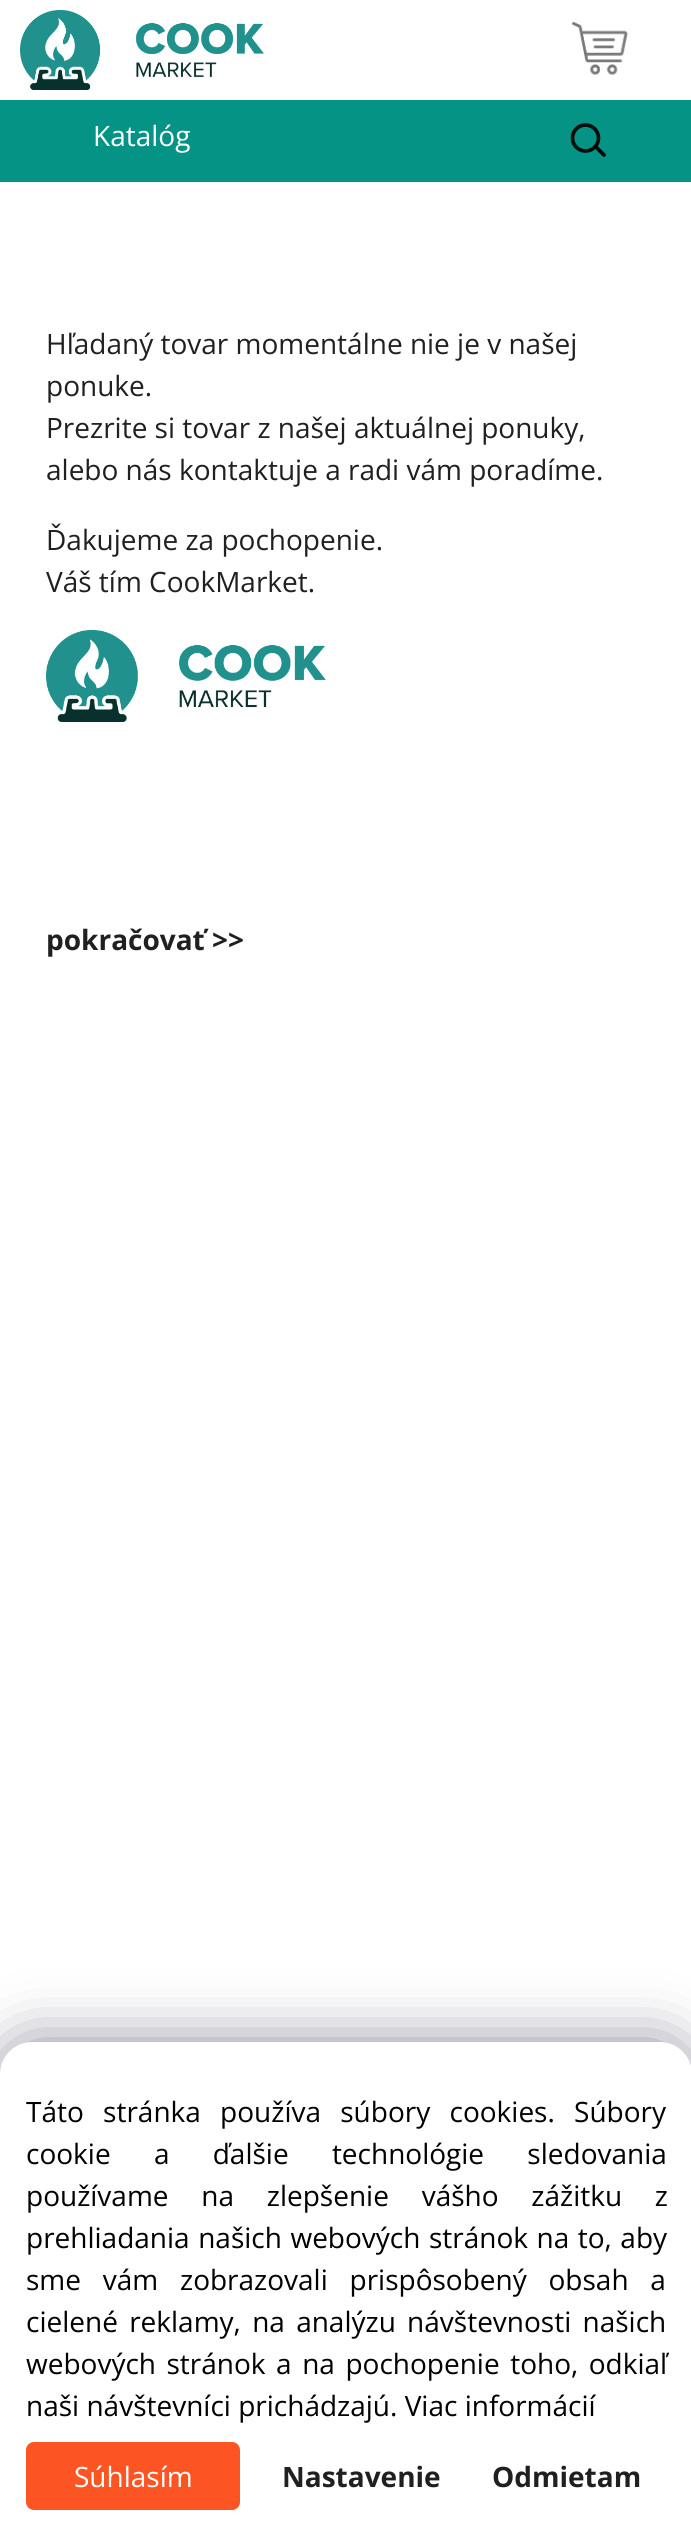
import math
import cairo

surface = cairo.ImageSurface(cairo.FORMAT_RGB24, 691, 2541)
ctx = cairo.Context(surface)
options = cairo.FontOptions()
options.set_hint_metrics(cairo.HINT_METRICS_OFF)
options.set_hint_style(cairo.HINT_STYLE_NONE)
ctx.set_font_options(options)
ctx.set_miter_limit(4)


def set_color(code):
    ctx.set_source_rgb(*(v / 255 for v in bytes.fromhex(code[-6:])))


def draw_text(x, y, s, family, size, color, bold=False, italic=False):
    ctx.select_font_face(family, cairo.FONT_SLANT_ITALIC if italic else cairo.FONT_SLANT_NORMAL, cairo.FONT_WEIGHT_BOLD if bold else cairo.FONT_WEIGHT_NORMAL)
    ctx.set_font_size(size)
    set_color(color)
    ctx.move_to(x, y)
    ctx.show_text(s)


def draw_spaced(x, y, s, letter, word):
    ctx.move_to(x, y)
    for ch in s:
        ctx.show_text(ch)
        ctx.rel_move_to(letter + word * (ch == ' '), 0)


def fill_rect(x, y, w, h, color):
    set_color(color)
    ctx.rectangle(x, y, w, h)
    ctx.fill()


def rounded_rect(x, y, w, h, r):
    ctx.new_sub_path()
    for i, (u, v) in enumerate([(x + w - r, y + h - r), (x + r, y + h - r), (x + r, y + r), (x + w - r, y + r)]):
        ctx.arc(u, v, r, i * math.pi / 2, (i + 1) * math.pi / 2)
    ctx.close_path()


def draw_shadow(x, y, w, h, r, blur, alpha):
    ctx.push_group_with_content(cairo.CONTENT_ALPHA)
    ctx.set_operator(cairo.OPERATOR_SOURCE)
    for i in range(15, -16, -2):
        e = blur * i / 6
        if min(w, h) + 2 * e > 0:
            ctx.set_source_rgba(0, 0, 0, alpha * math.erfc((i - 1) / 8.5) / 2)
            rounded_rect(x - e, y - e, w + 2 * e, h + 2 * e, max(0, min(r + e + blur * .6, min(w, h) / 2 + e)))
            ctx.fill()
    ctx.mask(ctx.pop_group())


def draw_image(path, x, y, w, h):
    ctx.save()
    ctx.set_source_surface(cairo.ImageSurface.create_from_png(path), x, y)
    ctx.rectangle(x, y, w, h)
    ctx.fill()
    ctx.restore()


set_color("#ffffff")
ctx.paint()
draw_image("assets/img1.png", 20, 10, 244, 80)
fill_rect(0, 100, 691, 82, "#059386")
draw_image("assets/img2.png", 571, 21, 57, 54)
draw_text(93, 146, "Katalóg", "Open Sans", 28, "#ffffff")
ctx.new_path()
ctx.arc(585.5, 138, 13, 0, 2 * math.pi)
set_color("#000e0d")
ctx.set_line_width(3.7)
ctx.stroke()
ctx.new_path()
ctx.move_to(595.5, 146.5)
ctx.line_to(604, 155)
set_color("#000000")
ctx.set_line_cap(cairo.LINE_CAP_ROUND)
ctx.stroke()
draw_text(46, 354, "Hľadaný tovar momentálne nie je v našej", "Open Sans", 28, "#202020")
draw_text(46, 396, "ponuke.", "Open Sans", 28, "#202020")
draw_text(46, 438, "Prezrite si tovar z našej aktuálnej ponuky,", "Open Sans", 28, "#202020")
draw_text(46, 480, "alebo nás kontaktuje a radi vám poradíme.", "Open Sans", 28, "#202020")
draw_text(46, 550, "Ďakujeme za pochopenie.", "Open Sans", 28, "#202020")
draw_text(46, 592, "Váš tím CookMarket.", "Open Sans", 28, "#202020")
draw_image("assets/img3.png", 46, 630, 280, 92)
draw_text(46, 950, "pokračovať >>", "Open Sans", 28, "#202020", bold=True)
set_color("#1b1939")
draw_shadow(0, 2042, 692, 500, 32, 30, 0.5)
set_color("#ffffff")
ctx.new_path()
ctx.move_to(32, 2042)
ctx.line_to(660, 2042)
ctx.curve_to(677.5, 2042, 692, 2056.5, 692, 2074)
ctx.line_to(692, 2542)
ctx.line_to(0, 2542)
ctx.line_to(0, 2074)
ctx.curve_to(0, 2056.5, 14.5, 2042, 32, 2042)
ctx.close_path()
ctx.fill()
ctx.select_font_face("Open Sans")
set_color("#000000")
draw_spaced(26, 2122, "Táto stránka používa súbory cookies. Súbory", 0, 12)
draw_spaced(26, 2164, "cookie a ďalšie technológie sledovania", 0, 36)
draw_spaced(26, 2206, "používame na zlepšenie vášho zážitku z", 0, 25.5)
draw_spaced(26, 2248, "prehliadania našich webových stránok na to, aby", 0, 1.25)
draw_spaced(26, 2290, "sme vám zobrazovali prispôsobený obsah a", 0, 14.5)
draw_spaced(26, 2332, "cielené reklamy, na analýzu návštevnosti našich", 0, 4)
draw_spaced(26, 2374, "webových stránok a na pochopenie toho, odkiaľ", 0, 3.25)
draw_text(26, 2416, "naši návštevníci prichádzajú. Viac informácií", "Open Sans", 28, "#000000")
set_color("#fc5423")
rounded_rect(26, 2442, 214, 68, 8)
ctx.fill()
draw_text(74, 2487, "Súhlasím", "Open Sans", 28, "#ffffff")
draw_text(282, 2487, "Nastavenie", "Open Sans", 28, "#202020", bold=True)
draw_text(492, 2487, "Odmietam", "Open Sans", 28, "#202020", bold=True)
surface.write_to_png("output.png")
